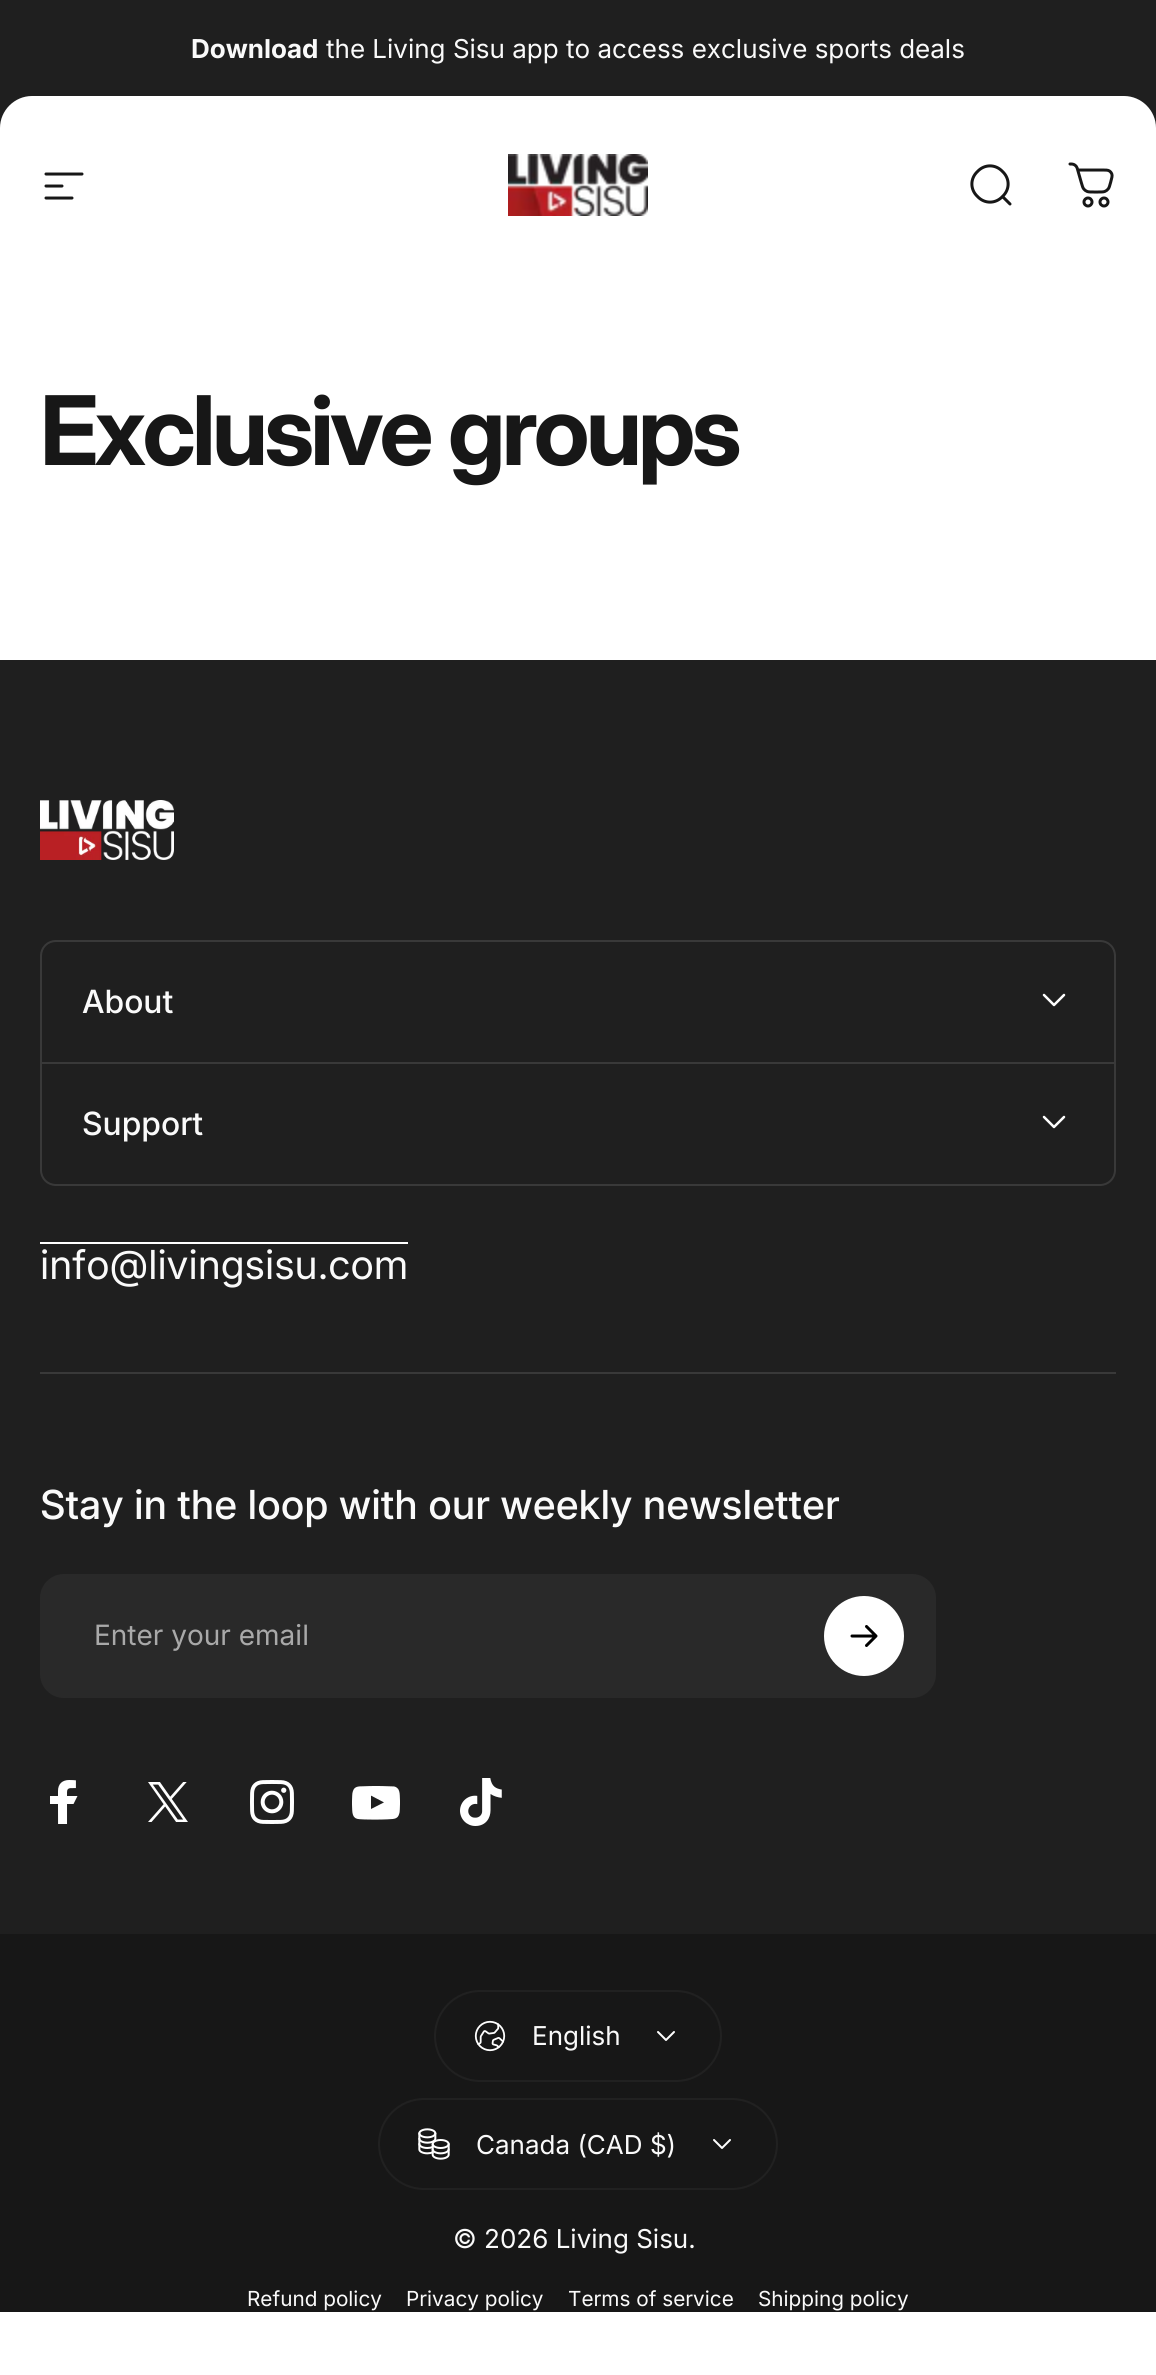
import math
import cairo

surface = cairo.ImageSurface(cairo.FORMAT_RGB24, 1156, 2375)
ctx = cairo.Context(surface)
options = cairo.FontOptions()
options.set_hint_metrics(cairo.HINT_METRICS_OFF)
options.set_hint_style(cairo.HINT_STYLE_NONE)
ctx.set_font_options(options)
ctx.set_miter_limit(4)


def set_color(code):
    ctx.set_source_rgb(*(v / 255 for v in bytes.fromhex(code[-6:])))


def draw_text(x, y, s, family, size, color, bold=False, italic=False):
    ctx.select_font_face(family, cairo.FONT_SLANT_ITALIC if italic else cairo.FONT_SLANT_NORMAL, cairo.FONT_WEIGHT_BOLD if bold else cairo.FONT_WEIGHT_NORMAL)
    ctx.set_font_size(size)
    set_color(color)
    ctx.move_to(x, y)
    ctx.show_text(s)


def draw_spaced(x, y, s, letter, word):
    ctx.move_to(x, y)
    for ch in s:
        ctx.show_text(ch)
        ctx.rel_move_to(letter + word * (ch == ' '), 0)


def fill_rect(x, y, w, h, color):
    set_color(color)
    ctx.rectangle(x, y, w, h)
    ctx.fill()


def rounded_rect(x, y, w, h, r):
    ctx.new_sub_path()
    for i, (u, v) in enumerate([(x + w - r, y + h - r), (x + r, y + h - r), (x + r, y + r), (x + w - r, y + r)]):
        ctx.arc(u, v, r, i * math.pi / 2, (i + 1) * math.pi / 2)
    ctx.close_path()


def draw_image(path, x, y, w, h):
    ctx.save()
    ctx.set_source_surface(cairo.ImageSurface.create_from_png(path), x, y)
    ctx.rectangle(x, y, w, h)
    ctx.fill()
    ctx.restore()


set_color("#ffffff")
ctx.paint()
fill_rect(0, 0, 1156, 32, "#1f1f1f")
ctx.new_path()
ctx.move_to(32, 0)
ctx.line_to(1124, 0)
ctx.curve_to(1141.5, 0, 1156, 14.5, 1156, 32)
ctx.line_to(1156, 128)
ctx.line_to(0, 128)
ctx.line_to(0, 32)
ctx.curve_to(0, 14.5, 14.5, 0, 32, 0)
ctx.close_path()
ctx.fill()
draw_text(191, 58, "Download", "Inter", 26, "#fafafa", bold=True)
draw_text(326, 58, "the Living Sisu app to access exclusive sports deals", "Inter", 26, "#fafafa")
set_color("#ffffff")
ctx.new_path()
ctx.move_to(32, 96)
ctx.line_to(1124, 96)
ctx.curve_to(1141.5, 96, 1156, 110.5, 1156, 128)
ctx.line_to(1156, 278)
ctx.line_to(0, 278)
ctx.line_to(0, 128)
ctx.curve_to(0, 110.5, 14.5, 96, 32, 96)
ctx.close_path()
ctx.fill()
ctx.new_path()
ctx.move_to(46, 174)
ctx.line_to(82, 174)
ctx.move_to(46, 186)
ctx.line_to(62, 186)
ctx.move_to(46, 198)
ctx.line_to(72, 198)
set_color("#171717")
ctx.set_line_width(3)
ctx.set_line_cap(cairo.LINE_CAP_ROUND)
ctx.stroke()
draw_image("assets/img1.png", 508, 154, 140, 62)
ctx.new_path()
ctx.move_to(1010, 204)
ctx.line_to(1002.5, 196.5)
ctx.move_to(1002.5, 196.5)
ctx.curve_to(1010, 189.5, 1010, 178.5, 1002.5, 171.5)
ctx.curve_to(995.5, 164, 984.5, 164, 977.5, 171.5)
ctx.curve_to(970, 178.5, 970, 189.5, 977.5, 196.5)
ctx.curve_to(984.5, 204, 995.5, 204, 1002.5, 196.5)
ctx.close_path()
ctx.stroke()
draw_image("assets/img2.png", 1068, 162, 46, 46)
ctx.select_font_face("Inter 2", cairo.FONT_SLANT_NORMAL, cairo.FONT_WEIGHT_BOLD)
ctx.set_font_size(96)
draw_spaced(40, 465, "Exclusive", -3.75, 0)
draw_spaced(448, 465, "groups", -3.75, 0)
fill_rect(0, 660, 1156, 1274, "#1f1f1f")
draw_image("assets/img3.png", 40, 800, 134, 60)
set_color("#393939")
ctx.set_fill_rule(cairo.FILL_RULE_EVEN_ODD)
ctx.new_path()
ctx.move_to(56, 940)
ctx.line_to(1100, 940)
ctx.curve_to(1109, 940, 1116, 947, 1116, 956)
ctx.line_to(1116, 1062)
ctx.line_to(40, 1062)
ctx.line_to(40, 956)
ctx.curve_to(40, 947, 47, 940, 56, 940)
ctx.close_path()
ctx.move_to(56, 942)
ctx.line_to(1100, 942)
ctx.curve_to(1108, 942, 1114, 948, 1114, 956)
ctx.line_to(1114, 1062)
ctx.line_to(42, 1062)
ctx.line_to(42, 956)
ctx.curve_to(42, 948, 48, 942, 56, 942)
ctx.close_path()
ctx.fill()
draw_text(82, 1013, "About", "Inter Medium", 32, "#fafafa")
ctx.new_path()
ctx.move_to(1044, 995)
ctx.line_to(1054, 1005)
ctx.line_to(1064, 995)
set_color("#ffffff")
ctx.set_line_width(2.5)
ctx.set_line_join(cairo.LINE_JOIN_ROUND)
ctx.stroke()
ctx.new_path()
ctx.move_to(41, 1063)
ctx.line_to(1115, 1063)
ctx.line_to(1115, 1170)
ctx.curve_to(1115, 1178.5, 1108.5, 1185, 1100, 1185)
ctx.line_to(56, 1185)
ctx.curve_to(47.5, 1185, 41, 1178.5, 41, 1170)
ctx.close_path()
set_color("#393939")
ctx.set_line_width(2)
ctx.set_line_cap(cairo.LINE_CAP_BUTT)
ctx.set_line_join(cairo.LINE_JOIN_MITER)
ctx.stroke()
draw_text(82, 1135, "Support", "Inter Medium", 32, "#fafafa")
ctx.new_path()
ctx.move_to(1044, 1117)
ctx.line_to(1054, 1127)
ctx.line_to(1064, 1117)
set_color("#ffffff")
ctx.set_line_width(2.5)
ctx.set_line_cap(cairo.LINE_CAP_ROUND)
ctx.set_line_join(cairo.LINE_JOIN_ROUND)
ctx.stroke()
fill_rect(40, 1242, 368, 2, "#ffffff")
draw_text(40, 1279, "info@livingsisu.com", "Inter 2", 40, "#fafafa")
fill_rect(40, 1372, 1076, 2, "#393939")
draw_text(40, 1519, "Stay in the loop with our weekly newsletter", "Inter 2 Medium", 40, "#fafafa")
set_color("#292929")
rounded_rect(40, 1574, 896, 124, 24)
ctx.fill()
draw_text(94, 1645, "Enter your email", "Inter", 28, "#a9a9a9")
set_color("#ffffff")
ctx.new_path()
ctx.arc(864, 1636, 38, 0, 2 * math.pi)
ctx.fill_preserve()
ctx.set_line_width(4)
ctx.set_line_cap(cairo.LINE_CAP_BUTT)
ctx.set_line_join(cairo.LINE_JOIN_MITER)
ctx.stroke()
ctx.new_path()
ctx.move_to(852, 1636)
ctx.line_to(876, 1636)
ctx.move_to(876, 1636)
ctx.line_to(866.5, 1626.5)
ctx.move_to(876, 1636)
ctx.line_to(866.5, 1645.5)
set_color("#000000")
ctx.set_line_width(3)
ctx.set_line_cap(cairo.LINE_CAP_ROUND)
ctx.set_line_join(cairo.LINE_JOIN_ROUND)
ctx.stroke()
draw_image("assets/img4.png", 50, 1780, 28, 44)
draw_image("assets/img5.png", 148, 1782, 40, 40)
draw_image("assets/img6.png", 250, 1780, 44, 44)
draw_image("assets/img7.png", 352, 1786, 48, 34)
draw_image("assets/img8.png", 460, 1778, 42, 48)
fill_rect(0, 1934, 1156, 378, "#171717")
rounded_rect(435, 1991, 286, 90, 45)
set_color("#212121")
ctx.set_line_width(2)
ctx.set_line_cap(cairo.LINE_CAP_BUTT)
ctx.set_line_join(cairo.LINE_JOIN_MITER)
ctx.stroke()
draw_image("assets/img9.png", 474, 2020, 32, 32)
draw_text(532, 2045, "English", "Inter", 26, "#fafafa")
ctx.new_path()
ctx.move_to(658, 2032)
ctx.line_to(666, 2040)
ctx.line_to(674, 2032)
set_color("#ffffff")
ctx.set_line_cap(cairo.LINE_CAP_ROUND)
ctx.set_line_join(cairo.LINE_JOIN_ROUND)
ctx.stroke()
rounded_rect(379, 2099, 398, 90, 45)
set_color("#212121")
ctx.set_line_cap(cairo.LINE_CAP_BUTT)
ctx.set_line_join(cairo.LINE_JOIN_MITER)
ctx.stroke()
draw_image("assets/img10.png", 418, 2128, 32, 32)
draw_text(476, 2154, "Canada (CAD $)", "Inter", 26, "#fafafa")
ctx.new_path()
ctx.move_to(714, 2140)
ctx.line_to(722, 2148)
ctx.line_to(730, 2140)
set_color("#ffffff")
ctx.set_line_cap(cairo.LINE_CAP_ROUND)
ctx.set_line_join(cairo.LINE_JOIN_ROUND)
ctx.stroke()
draw_text(453, 2248, "© 2026 Living Sisu.", "Inter", 26, "#fafafa")
draw_text(247, 2306, "Refund policy", "Inter", 20.75, "#fafafa")
draw_text(406, 2306, "Privacy policy", "Inter", 20.75, "#fafafa")
draw_text(568, 2306, "Terms of service", "Inter", 20.75, "#fafafa")
draw_text(758, 2306, "Shipping policy", "Inter", 20.75, "#fafafa")
surface.write_to_png("output.png")
